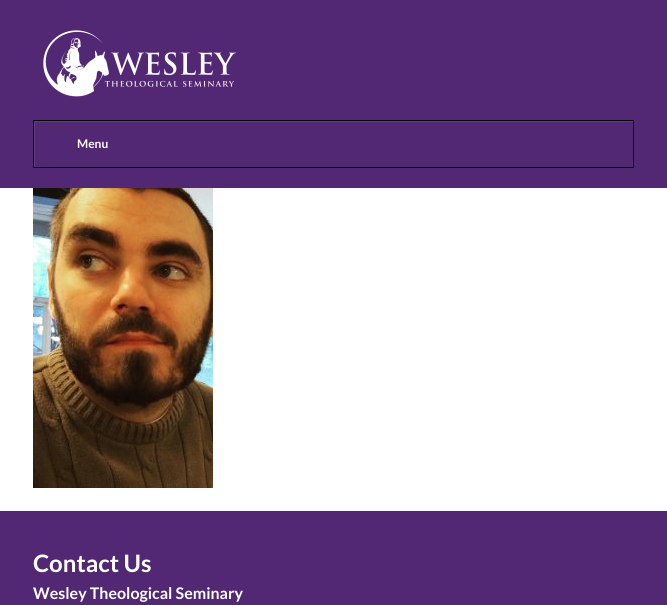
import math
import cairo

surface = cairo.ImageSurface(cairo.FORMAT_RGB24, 667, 605)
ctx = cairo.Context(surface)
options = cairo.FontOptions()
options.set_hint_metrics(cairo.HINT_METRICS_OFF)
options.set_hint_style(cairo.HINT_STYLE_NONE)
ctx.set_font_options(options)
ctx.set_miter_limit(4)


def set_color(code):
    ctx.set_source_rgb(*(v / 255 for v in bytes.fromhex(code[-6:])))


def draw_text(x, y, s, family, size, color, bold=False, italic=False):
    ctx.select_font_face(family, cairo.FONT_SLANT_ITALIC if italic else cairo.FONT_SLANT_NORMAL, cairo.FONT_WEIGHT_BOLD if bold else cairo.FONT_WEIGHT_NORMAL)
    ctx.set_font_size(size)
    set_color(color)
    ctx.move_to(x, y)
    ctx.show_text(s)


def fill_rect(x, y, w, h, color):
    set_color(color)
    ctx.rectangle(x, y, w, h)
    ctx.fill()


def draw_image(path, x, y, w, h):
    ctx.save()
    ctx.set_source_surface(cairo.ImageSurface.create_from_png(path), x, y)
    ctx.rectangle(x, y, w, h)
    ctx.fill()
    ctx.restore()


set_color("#ffffff")
ctx.paint()
fill_rect(0, 0, 667, 188, "#522773")
draw_image("assets/img1.png", 43, 30, 193, 67)
ctx.save()
ctx.rectangle(34, 121, 599, 46)
ctx.clip()
set_color("#633d81")
ctx.set_fill_rule(cairo.FILL_RULE_EVEN_ODD)
ctx.new_path()
ctx.move_to(-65, 22)
ctx.line_to(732, 22)
ctx.line_to(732, 266)
ctx.line_to(-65, 266)
ctx.close_path()
ctx.move_to(35, 122)
ctx.line_to(634, 122)
ctx.line_to(634, 168)
ctx.line_to(35, 168)
ctx.close_path()
ctx.fill()
ctx.restore()
ctx.rectangle(33.5, 120.5, 600, 47)
set_color("#000000")
ctx.set_line_width(1)
ctx.stroke()
draw_text(77, 148, "Menu", "Lato", 12, "#ffffff", bold=True)
draw_image("assets/img2.png", 33, 188, 180, 300)
fill_rect(0, 511, 667, 94, "#522773")
draw_text(33, 572, "Contact Us", "Lato", 24, "#ffffff", bold=True)
draw_text(33, 599, "Wesley Theological Seminary", "Lato", 16, "#ffffff", bold=True)
surface.write_to_png("output.png")
